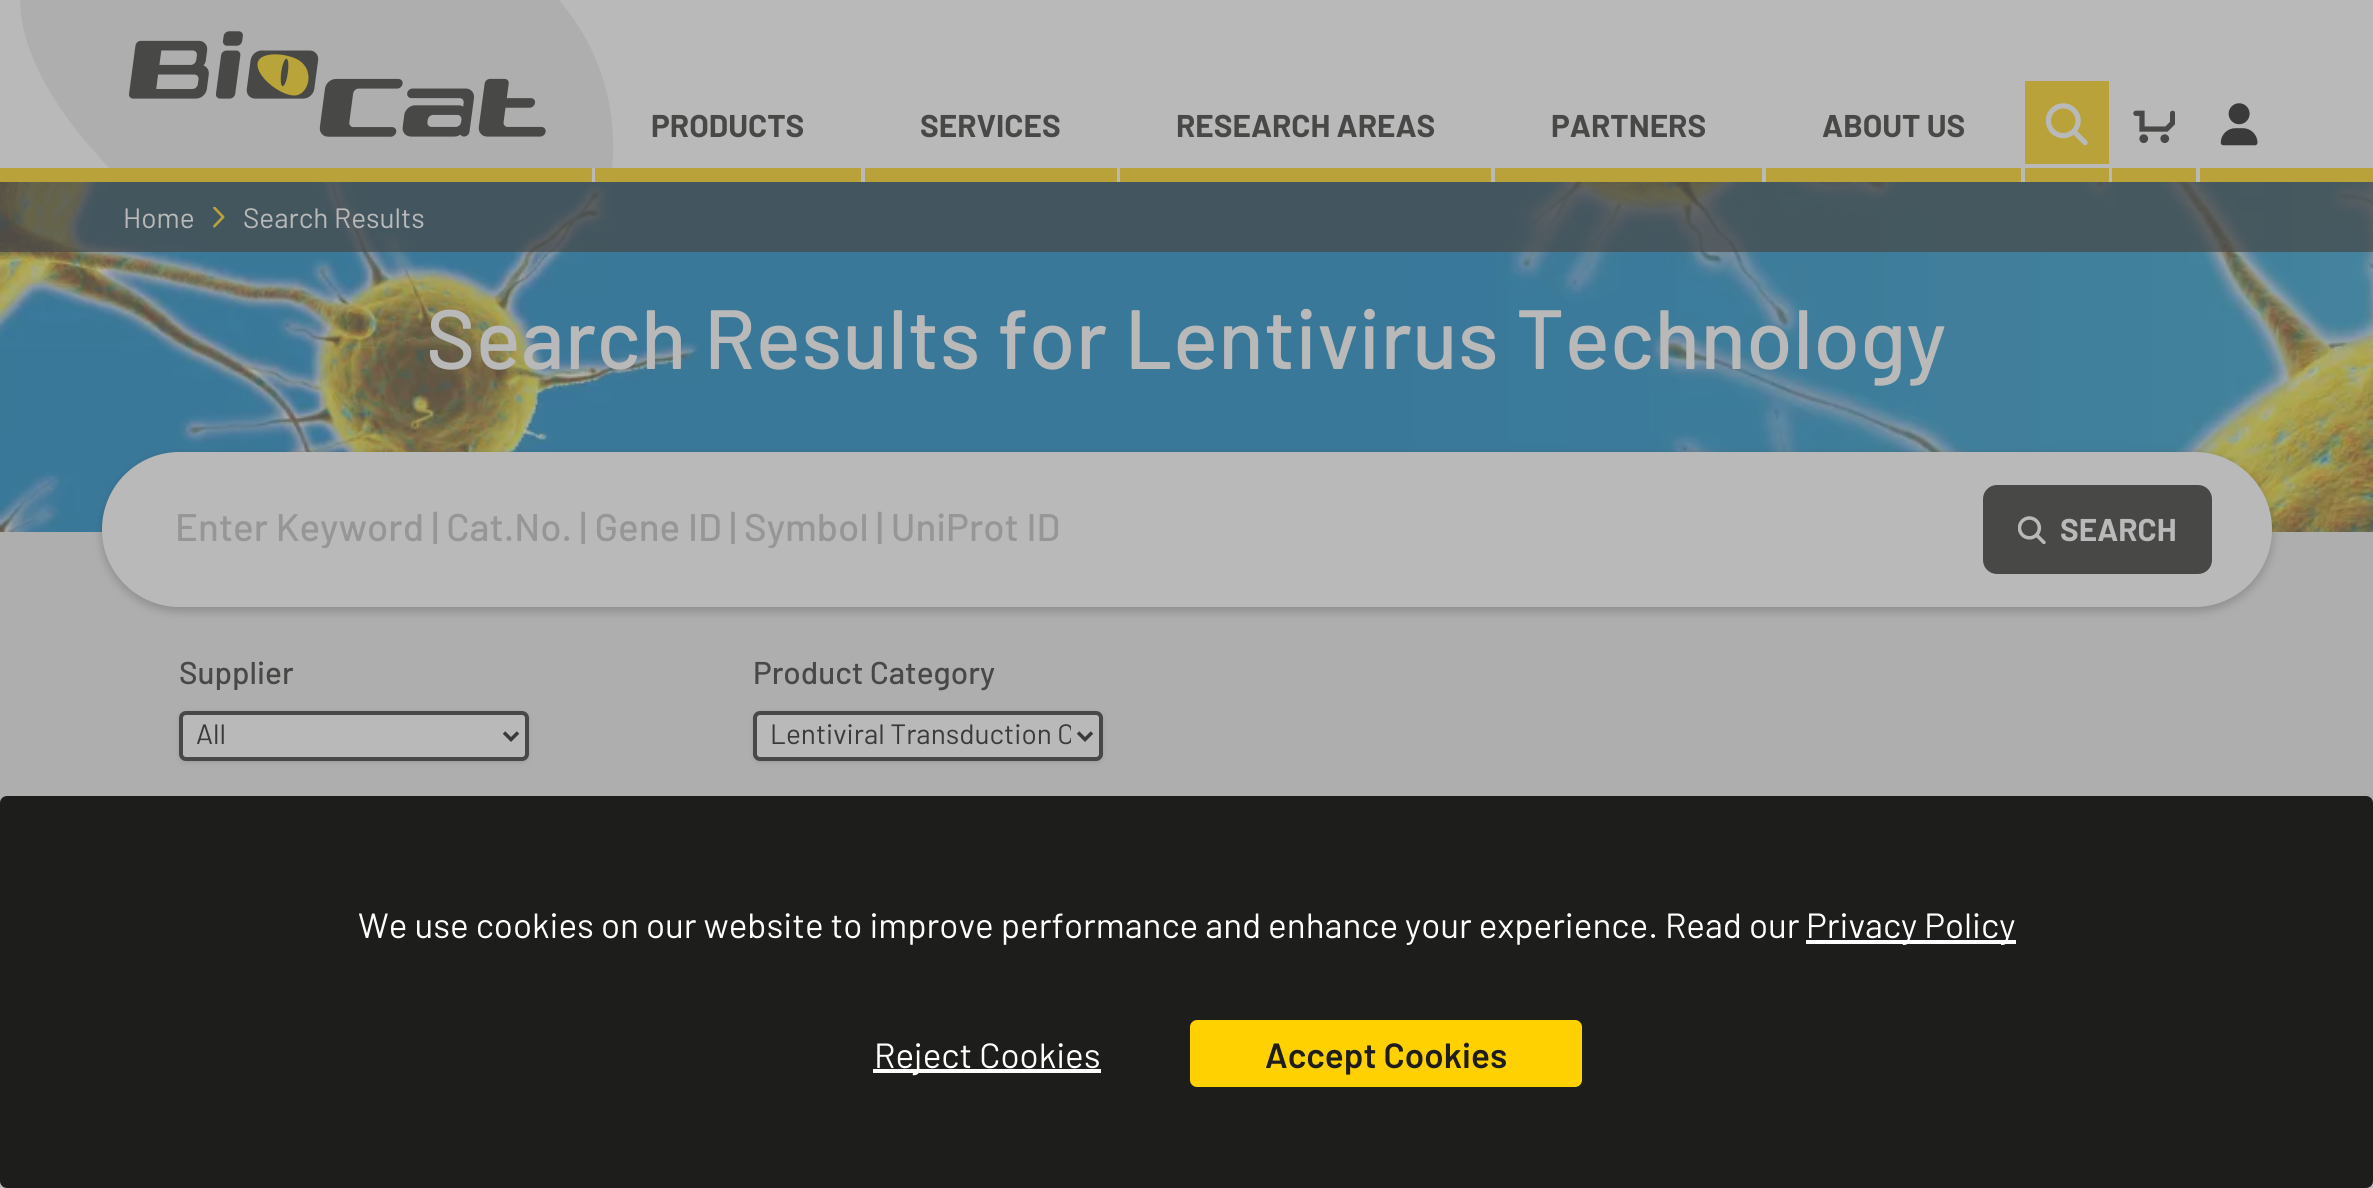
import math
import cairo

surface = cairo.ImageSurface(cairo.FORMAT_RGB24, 2373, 1188)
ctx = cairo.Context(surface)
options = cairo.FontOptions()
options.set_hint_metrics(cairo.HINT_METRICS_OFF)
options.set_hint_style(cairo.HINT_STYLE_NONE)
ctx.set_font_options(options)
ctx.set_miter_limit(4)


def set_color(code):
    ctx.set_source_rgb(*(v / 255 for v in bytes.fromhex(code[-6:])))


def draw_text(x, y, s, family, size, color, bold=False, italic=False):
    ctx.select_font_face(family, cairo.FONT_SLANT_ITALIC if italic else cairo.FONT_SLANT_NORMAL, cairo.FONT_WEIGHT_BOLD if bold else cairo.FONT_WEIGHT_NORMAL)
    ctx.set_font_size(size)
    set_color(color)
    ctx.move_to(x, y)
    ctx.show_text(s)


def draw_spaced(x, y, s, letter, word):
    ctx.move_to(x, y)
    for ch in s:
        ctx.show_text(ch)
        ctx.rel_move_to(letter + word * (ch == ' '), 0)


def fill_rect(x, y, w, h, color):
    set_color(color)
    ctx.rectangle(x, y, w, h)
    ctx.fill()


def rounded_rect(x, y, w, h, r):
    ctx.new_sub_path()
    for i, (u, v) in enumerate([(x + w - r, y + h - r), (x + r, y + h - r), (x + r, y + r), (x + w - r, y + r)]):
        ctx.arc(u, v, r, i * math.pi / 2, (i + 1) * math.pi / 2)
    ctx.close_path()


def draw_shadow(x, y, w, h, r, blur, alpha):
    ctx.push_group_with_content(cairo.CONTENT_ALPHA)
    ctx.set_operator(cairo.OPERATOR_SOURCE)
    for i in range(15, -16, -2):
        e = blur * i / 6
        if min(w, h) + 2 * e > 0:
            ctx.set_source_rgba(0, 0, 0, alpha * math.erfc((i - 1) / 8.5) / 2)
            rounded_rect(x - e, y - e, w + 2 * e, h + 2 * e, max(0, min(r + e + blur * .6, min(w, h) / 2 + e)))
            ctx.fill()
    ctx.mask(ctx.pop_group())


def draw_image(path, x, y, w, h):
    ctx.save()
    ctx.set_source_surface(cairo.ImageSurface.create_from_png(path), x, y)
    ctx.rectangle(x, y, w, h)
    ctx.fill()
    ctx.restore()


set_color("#b9b9b9")
ctx.paint()
fill_rect(0, 168, 2373, 14, "#b9a23a")
draw_image("assets/img1.png", 20, 0, 594, 168)
fill_rect(592, 168, 3, 14, "#b9b9b9")
draw_text(651, 137, "PRODUCTS", "Barlow", 31.5, "#484847", bold=True)
fill_rect(861, 168, 4, 14, "#b9b9b9")
draw_text(920, 137, "SERVICES", "Barlow", 31.5, "#484847", bold=True)
fill_rect(1117, 168, 4, 14, "#b9b9b9")
fill_rect(1120, 168, 1, 14, "#b9a23a")
draw_text(1176, 137, "RESEARCH AREAS", "Barlow", 31.5, "#484847", bold=True)
fill_rect(1491, 168, 4, 14, "#b9b9b9")
draw_text(1551, 137, "PARTNERS", "Barlow", 31.5, "#484847", bold=True)
fill_rect(1762, 168, 4, 14, "#b9b9b9")
draw_text(1822, 137, "ABOUT US", "Barlow", 31.5, "#484847", bold=True)
fill_rect(2021, 168, 4, 14, "#b9b9b9")
fill_rect(2025, 81, 84, 83, "#b9a23a")
draw_image("assets/img2.png", 2046, 103, 42, 42)
fill_rect(2109, 168, 4, 14, "#b9b9b9")
fill_rect(2112, 168, 1, 14, "#b9a23a")
draw_image("assets/img3.png", 2133, 110, 42, 34)
fill_rect(2196, 168, 4, 14, "#b9b9b9")
draw_image("assets/img4.png", 2220, 103, 38, 43)
draw_image("assets/img6.png", 0, 182, 2373, 350)
ctx.set_source_rgba(0.282, 0.282, 0.278, 0.7)
ctx.rectangle(0, 182, 2373, 70)
ctx.fill()
draw_text(123, 228, "Home", "Barlow", 28, "#b9b9b9")
draw_image("assets/img5.png", 213, 207, 12, 21)
draw_text(243, 228, "Search Results", "Barlow", 28, "#b9b9b9")
ctx.select_font_face("Barlow Medium")
ctx.set_font_size(84)
draw_spaced(426, 369, "Search Results for Lentivirus Technology", 0.35, 0)
fill_rect(0, 532, 2373, 271, "#aeaeae")
set_color("#3a3a3a")
draw_shadow(102, 455, 2170, 156, 78, 5, 0.3)
set_color("#b9b9b9")
rounded_rect(104, 454, 2166, 151, 75.5)
ctx.fill_preserve()
ctx.set_line_width(4)
ctx.stroke()
ctx.save()
ctx.rectangle(175, 502, 1724, 46)
ctx.clip()
draw_text(175, 541, "Enter Keyword | Cat.No. | Gene ID | Symbol | UniProt ID", "Barlow Medium", 38.5, "#969696")
ctx.restore()
set_color("#484847")
rounded_rect(1983, 485, 229, 89, 14)
ctx.fill()
draw_image("assets/img7.png", 2018, 516, 28, 28)
draw_text(2060, 541, "SEARCH", "Barlow", 31.5, "#b9b9b9", bold=True)
draw_text(179, 684, "Supplier", "Barlow Medium", 31.5, "#484847")
set_color("#3a3a3a")
draw_shadow(180, 714, 347, 47, 5, 2, 0.1)
draw_shadow(179, 712, 350, 51, 7, 2.5, 0.1)
set_color("#b9b9b9")
rounded_rect(181, 713, 346, 46, 5)
ctx.fill_preserve()
set_color("#484847")
ctx.stroke()
ctx.new_path()
ctx.move_to(504, 732.5)
ctx.line_to(511, 739.5)
ctx.line_to(518, 732.5)
set_color("#3a3a3a")
ctx.set_line_width(3.5)
ctx.stroke()
draw_text(196, 744, "All", "Barlow", 28, "#3a3a3a")
draw_text(753, 684, "Product Category", "Barlow Medium", 31.5, "#484847")
set_color("#3a3a3a")
draw_shadow(754, 714, 347, 47, 5, 2, 0.1)
draw_shadow(753, 712, 350, 51, 7, 2.5, 0.1)
set_color("#b9b9b9")
rounded_rect(755, 713, 346, 46, 5)
ctx.fill_preserve()
set_color("#484847")
ctx.set_line_width(4)
ctx.stroke()
ctx.new_path()
ctx.move_to(1078, 732.5)
ctx.line_to(1085, 739.5)
ctx.line_to(1092, 732.5)
set_color("#3a3a3a")
ctx.set_line_width(3.5)
ctx.stroke()
ctx.save()
ctx.rectangle(770, 714, 301, 37)
ctx.clip()
draw_text(770, 744, "Lentiviral Transduction C", "Barlow", 28, "#3a3a3a")
ctx.restore()
set_color("#1d1d1b")
rounded_rect(0, 796, 2373, 392, 7)
ctx.fill()
draw_text(358, 938, "We use cookies on our website to improve performance and enhance your experience. Read our", "Barlow", 35, "#ffffff")
fill_rect(1806, 940, 210, 4, "#ffffff")
draw_text(1806, 938, "Privacy Policy", "Barlow", 35, "#ffffff")
fill_rect(873, 1069, 228, 4, "#ffffff")
draw_text(874, 1068, "Reject Cookies", "Barlow", 35, "#ffffff")
set_color("#ffd100")
rounded_rect(1190, 1020, 392, 67, 7)
ctx.fill()
draw_text(1265, 1068, "Accept Cookies", "Barlow SemiBold", 35, "#1d1d1b")
surface.write_to_png("output.png")
